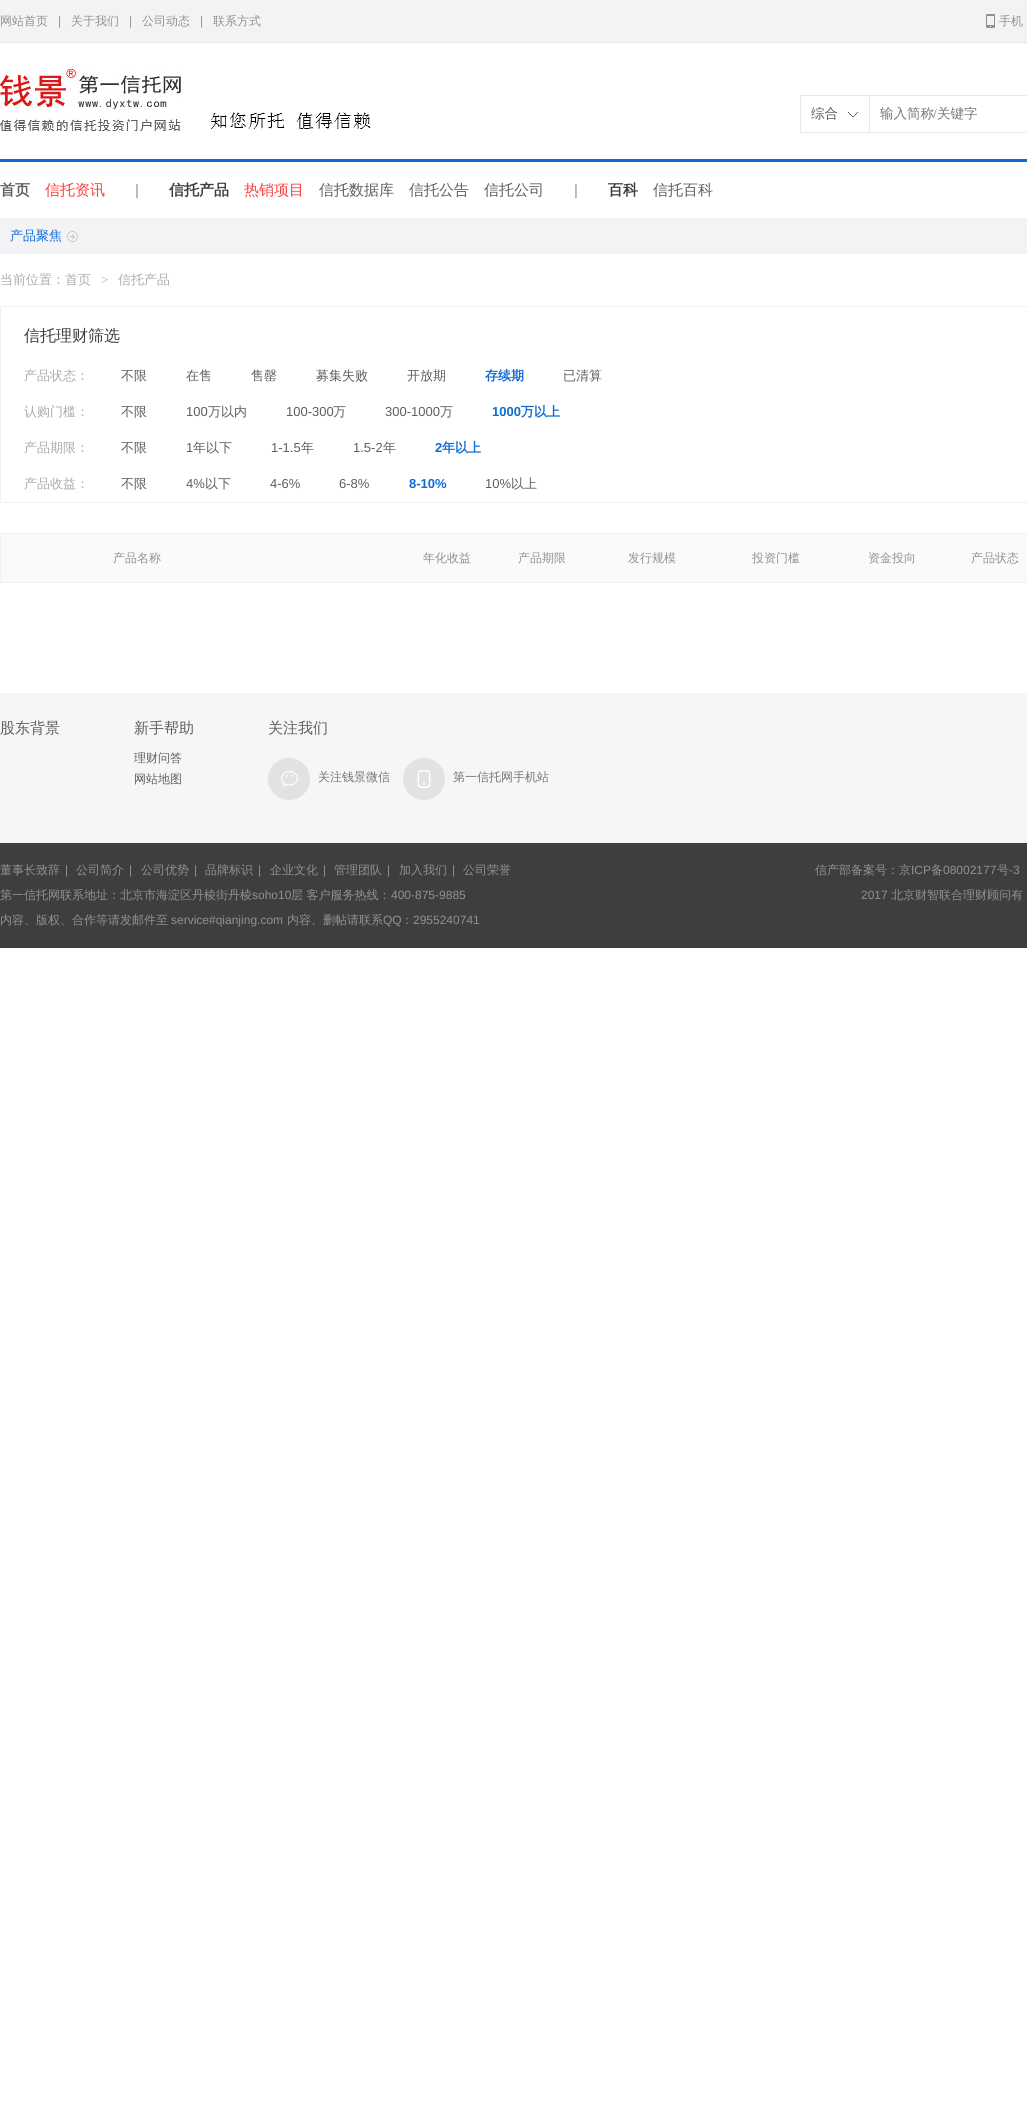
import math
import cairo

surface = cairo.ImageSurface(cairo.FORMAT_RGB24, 1027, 2127)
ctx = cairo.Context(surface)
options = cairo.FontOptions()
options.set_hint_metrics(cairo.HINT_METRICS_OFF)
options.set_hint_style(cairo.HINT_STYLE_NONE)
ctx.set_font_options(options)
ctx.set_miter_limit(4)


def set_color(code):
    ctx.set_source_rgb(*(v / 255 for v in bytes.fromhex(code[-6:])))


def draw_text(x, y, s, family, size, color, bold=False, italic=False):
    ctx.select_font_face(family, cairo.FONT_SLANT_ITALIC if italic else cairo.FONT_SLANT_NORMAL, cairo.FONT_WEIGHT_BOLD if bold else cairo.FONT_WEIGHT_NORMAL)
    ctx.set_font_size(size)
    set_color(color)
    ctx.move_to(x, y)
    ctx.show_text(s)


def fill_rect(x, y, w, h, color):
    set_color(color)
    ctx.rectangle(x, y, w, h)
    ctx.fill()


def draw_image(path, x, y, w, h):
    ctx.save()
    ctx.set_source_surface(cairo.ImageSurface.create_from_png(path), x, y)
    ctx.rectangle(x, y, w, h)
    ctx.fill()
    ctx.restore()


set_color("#ffffff")
ctx.paint()
fill_rect(0, 0, 1027, 42, "#f3f3f5")
fill_rect(0, 42, 1027, 1, "#e8e8e8")
draw_text(0, 25, "网站首页", "WenQuanYi Zen Hei Medium", 12, "#919191")
draw_text(58, 25, "|", "Liberation Sans", 12, "#919191")
draw_text(71, 25, "关于我们", "WenQuanYi Zen Hei Medium", 12, "#919191")
draw_text(129, 25, "|", "Liberation Sans", 12, "#919191")
draw_text(142, 25, "公司动态", "WenQuanYi Zen Hei Medium", 12, "#919191")
draw_text(200, 25, "|", "Liberation Sans", 12, "#919191")
draw_text(213, 25, "联系方式", "WenQuanYi Zen Hei Medium", 12, "#919191")
draw_image("assets/img1.png", 986, 14, 9, 14)
draw_text(999, 25, "手机", "WenQuanYi Zen Hei Medium", 12, "#919191")
fill_rect(0, 159, 1027, 3, "#0e6ad6")
draw_image("assets/img2.png", 0, 69, 183, 63)
draw_image("assets/img3.png", 211, 112, 160, 17)
ctx.rectangle(800.5, 95.5, 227, 37)
set_color("#e8e8e8")
ctx.set_line_width(1)
ctx.stroke()
draw_image("assets/img4.png", 848, 112, 10, 5)
fill_rect(869, 96, 1, 36, "#e8e8e8")
draw_text(811, 118, "综合", "WenQuanYi Zen Hei Medium", 13.5, "#5e5e5e")
draw_text(880, 118, "输入简称", "WenQuanYi Zen Hei Medium", 13.5, "#757575")
draw_text(933, 118, "/", "Liberation Serif", 13.5, "#757575")
draw_text(937, 118, "关键字", "WenQuanYi Zen Hei Medium", 13.5, "#757575")
draw_text(0, 195, "首页", "WenQuanYi Zen Hei", 15, "#5e5e5e", bold=True)
draw_text(45, 195, "信托资讯", "WenQuanYi Zen Hei Medium", 15, "#fd3d3d")
draw_text(135, 195, "|", "Liberation Sans", 15, "#919191")
draw_text(169, 195, "信托产品", "WenQuanYi Zen Hei", 15, "#3e3e3e", bold=True)
draw_text(244, 195, "热销项目", "WenQuanYi Zen Hei Medium", 15, "#fd3d3d")
draw_text(319, 195, "信托数据库", "WenQuanYi Zen Hei Medium", 15, "#5e5e5e")
draw_text(409, 195, "信托公告", "WenQuanYi Zen Hei Medium", 15, "#5e5e5e")
draw_text(484, 195, "信托公司", "WenQuanYi Zen Hei Medium", 15, "#5e5e5e")
draw_text(574, 195, "|", "Liberation Sans", 15, "#919191")
draw_text(608, 195, "百科", "WenQuanYi Zen Hei", 15, "#3e3e3e", bold=True)
draw_text(653, 195, "信托百科", "WenQuanYi Zen Hei Medium", 15, "#5e5e5e")
fill_rect(0, 218, 1027, 36, "#f3f3f5")
draw_image("assets/img5.png", 67, 231, 11, 11)
draw_text(10, 240, "产品聚焦", "WenQuanYi Zen Hei Medium", 13, "#0e6ad6")
draw_text(0, 284, "当前位置：首页", "WenQuanYi Zen Hei Medium", 13, "#ababab")
draw_text(101, 284, ">", "Liberation Serif", 13, "#ababab")
draw_text(118, 284, "信托产品", "WenQuanYi Zen Hei Medium", 13, "#ababab")
ctx.rectangle(0.5, 306.5, 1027, 196)
set_color("#f1f1f1")
ctx.stroke()
draw_text(24, 341, "信托理财筛选", "WenQuanYi Zen Hei Medium", 16, "#3e3e3e")
draw_text(24, 380, "产品状态：", "WenQuanYi Zen Hei Medium", 13, "#ababab")
draw_text(121, 380, "不限", "WenQuanYi Zen Hei Medium", 13, "#5e5e5e")
draw_text(186, 380, "在售", "WenQuanYi Zen Hei Medium", 13, "#5e5e5e")
draw_text(251, 380, "售罄", "WenQuanYi Zen Hei Medium", 13, "#5e5e5e")
draw_text(316, 380, "募集失败", "WenQuanYi Zen Hei Medium", 13, "#5e5e5e")
draw_text(407, 380, "开放期", "WenQuanYi Zen Hei Medium", 13, "#5e5e5e")
draw_text(485, 380, "存续期", "WenQuanYi Zen Hei", 13, "#0e6ad6", bold=True)
draw_text(563, 380, "已清算", "WenQuanYi Zen Hei Medium", 13, "#5e5e5e")
draw_text(24, 416, "认购门槛：", "WenQuanYi Zen Hei Medium", 13, "#ababab")
draw_text(121, 416, "不限", "WenQuanYi Zen Hei Medium", 13, "#5e5e5e")
draw_text(186, 416, "100", "Liberation Sans", 13, "#5e5e5e")
draw_text(208, 416, "万以内", "WenQuanYi Zen Hei Medium", 13, "#5e5e5e")
draw_text(286, 416, "100-300", "Liberation Sans", 13, "#5e5e5e")
draw_text(333, 416, "万", "WenQuanYi Zen Hei Medium", 13, "#5e5e5e")
draw_text(385, 416, "300-1000", "Liberation Sans", 13, "#5e5e5e")
draw_text(440, 416, "万", "WenQuanYi Zen Hei Medium", 13, "#5e5e5e")
draw_text(492, 416, "1000", "Liberation Sans", 13, "#0e6ad6", bold=True)
draw_text(521, 416, "万以上", "WenQuanYi Zen Hei", 13, "#0e6ad6", bold=True)
draw_text(24, 452, "产品期限：", "WenQuanYi Zen Hei Medium", 13, "#ababab")
draw_text(121, 452, "不限", "WenQuanYi Zen Hei Medium", 13, "#5e5e5e")
draw_text(186, 452, "1", "Liberation Sans", 13, "#5e5e5e")
draw_text(193, 452, "年以下", "WenQuanYi Zen Hei Medium", 13, "#5e5e5e")
draw_text(271, 452, "1-1.5", "Liberation Sans", 13, "#5e5e5e")
draw_text(301, 452, "年", "WenQuanYi Zen Hei Medium", 13, "#5e5e5e")
draw_text(353, 452, "1.5-2", "Liberation Sans", 13, "#5e5e5e")
draw_text(383, 452, "年", "WenQuanYi Zen Hei Medium", 13, "#5e5e5e")
draw_text(435, 452, "2", "Liberation Sans", 13, "#0e6ad6", bold=True)
draw_text(442, 452, "年以上", "WenQuanYi Zen Hei", 13, "#0e6ad6", bold=True)
draw_text(24, 488, "产品收益：", "WenQuanYi Zen Hei Medium", 13, "#ababab")
draw_text(121, 488, "不限", "WenQuanYi Zen Hei Medium", 13, "#5e5e5e")
draw_text(186, 488, "4%", "Liberation Sans", 13, "#5e5e5e")
draw_text(205, 488, "以下", "WenQuanYi Zen Hei Medium", 13, "#5e5e5e")
draw_text(270, 488, "4-6%", "Liberation Sans", 13, "#5e5e5e")
draw_text(339, 488, "6-8%", "Liberation Sans", 13, "#5e5e5e")
draw_text(409, 488, "8-10%", "Liberation Sans", 13, "#0e6ad6", bold=True)
draw_text(485, 488, "10%", "Liberation Sans", 13, "#5e5e5e")
draw_text(511, 488, "以上", "WenQuanYi Zen Hei Medium", 13, "#5e5e5e")
set_color("#fafafd")
ctx.rectangle(0.5, 533.5, 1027, 49)
ctx.fill_preserve()
set_color("#f1f1f1")
ctx.stroke()
draw_text(113, 562, "产品名称", "WenQuanYi Zen Hei Medium", 12, "#919191")
draw_text(423, 562, "年化收益", "WenQuanYi Zen Hei Medium", 12, "#919191")
draw_text(518, 562, "产品期限", "WenQuanYi Zen Hei Medium", 12, "#919191")
draw_text(628, 562, "发行规模", "WenQuanYi Zen Hei Medium", 12, "#919191")
draw_text(752, 562, "投资门槛", "WenQuanYi Zen Hei Medium", 12, "#919191")
draw_text(868, 562, "资金投向", "WenQuanYi Zen Hei Medium", 12, "#919191")
draw_text(971, 562, "产品状态", "WenQuanYi Zen Hei Medium", 12, "#919191")
fill_rect(0, 693, 1027, 150, "#f6f6f6")
draw_text(0, 733, "股东背景", "WenQuanYi Zen Hei Medium", 15, "#5e5e5e")
draw_text(134, 733, "新手帮助", "WenQuanYi Zen Hei Medium", 15, "#5e5e5e")
draw_text(134, 762, "理财问答", "WenQuanYi Zen Hei Medium", 12, "#5e5e5e")
draw_text(134, 783, "网站地图", "WenQuanYi Zen Hei Medium", 12, "#5e5e5e")
draw_text(268, 733, "关注我们", "WenQuanYi Zen Hei Medium", 15, "#5e5e5e")
draw_image("assets/img6.png", 268, 758, 42, 42)
draw_text(318, 781, "关注钱景微信", "WenQuanYi Zen Hei Medium", 12, "#757575")
draw_image("assets/img7.png", 403, 758, 42, 42)
draw_text(453, 781, "第一信托网手机站", "WenQuanYi Zen Hei Medium", 12, "#757575")
fill_rect(0, 843, 1027, 105, "#3e3e3e")
draw_text(0, 874, "董事长致辞", "WenQuanYi Zen Hei Medium", 12, "#919191")
draw_text(65, 874, "|", "Liberation Sans", 12, "#919191")
draw_text(76, 874, "公司简介", "WenQuanYi Zen Hei Medium", 12, "#919191")
draw_text(129, 874, "|", "Liberation Sans", 12, "#919191")
draw_text(141, 874, "公司优势", "WenQuanYi Zen Hei Medium", 12, "#919191")
draw_text(194, 874, "|", "Liberation Sans", 12, "#919191")
draw_text(205, 874, "品牌标识", "WenQuanYi Zen Hei Medium", 12, "#919191")
draw_text(258, 874, "|", "Liberation Sans", 12, "#919191")
draw_text(270, 874, "企业文化", "WenQuanYi Zen Hei Medium", 12, "#919191")
draw_text(323, 874, "|", "Liberation Sans", 12, "#919191")
draw_text(334, 874, "管理团队", "WenQuanYi Zen Hei Medium", 12, "#919191")
draw_text(387, 874, "|", "Liberation Sans", 12, "#919191")
draw_text(399, 874, "加入我们", "WenQuanYi Zen Hei Medium", 12, "#919191")
draw_text(452, 874, "|", "Liberation Sans", 12, "#919191")
draw_text(463, 874, "公司荣誉", "WenQuanYi Zen Hei Medium", 12, "#919191")
draw_text(0, 899, "第一信托网联系地址：北京市海淀区丹棱街丹棱", "WenQuanYi Zen Hei Medium", 12, "#919191")
draw_text(252, 899, "soho10", "Liberation Sans", 12, "#919191")
draw_text(291, 899, "层 客户服务热线：", "WenQuanYi Zen Hei Medium", 12, "#919191")
draw_text(391, 899, "400-875-9885", "Liberation Sans", 12, "#919191")
draw_text(0, 924, "内容、版权、合作等请发邮件至", "WenQuanYi Zen Hei Medium", 12, "#919191")
draw_text(171, 924, "service#qianjing.com", "Liberation Sans", 12, "#919191")
draw_text(287, 924, "内容、删帖请联系", "WenQuanYi Zen Hei Medium", 12, "#919191")
draw_text(383, 924, "QQ", "Liberation Sans", 12, "#919191")
draw_text(401, 924, "：", "WenQuanYi Zen Hei Medium", 12, "#919191")
draw_text(413, 924, "2955240741", "Liberation Sans", 12, "#919191")
draw_text(815, 874, "信产部备案号：京", "WenQuanYi Zen Hei Medium", 12, "#919191")
draw_text(911, 874, "ICP", "Liberation Sans", 12, "#919191")
draw_text(931, 874, "备", "WenQuanYi Zen Hei Medium", 12, "#919191")
draw_text(943, 874, "08002177", "Liberation Sans", 12, "#919191")
draw_text(997, 874, "号", "WenQuanYi Zen Hei Medium", 12, "#919191")
draw_text(1009, 874, "-3", "Liberation Sans", 12, "#919191")
draw_text(861, 899, "2017", "Liberation Sans", 12, "#919191")
draw_text(891, 899, "北京财智联合理财顾问有", "WenQuanYi Zen Hei Medium", 12, "#919191")
surface.write_to_png("output.png")
